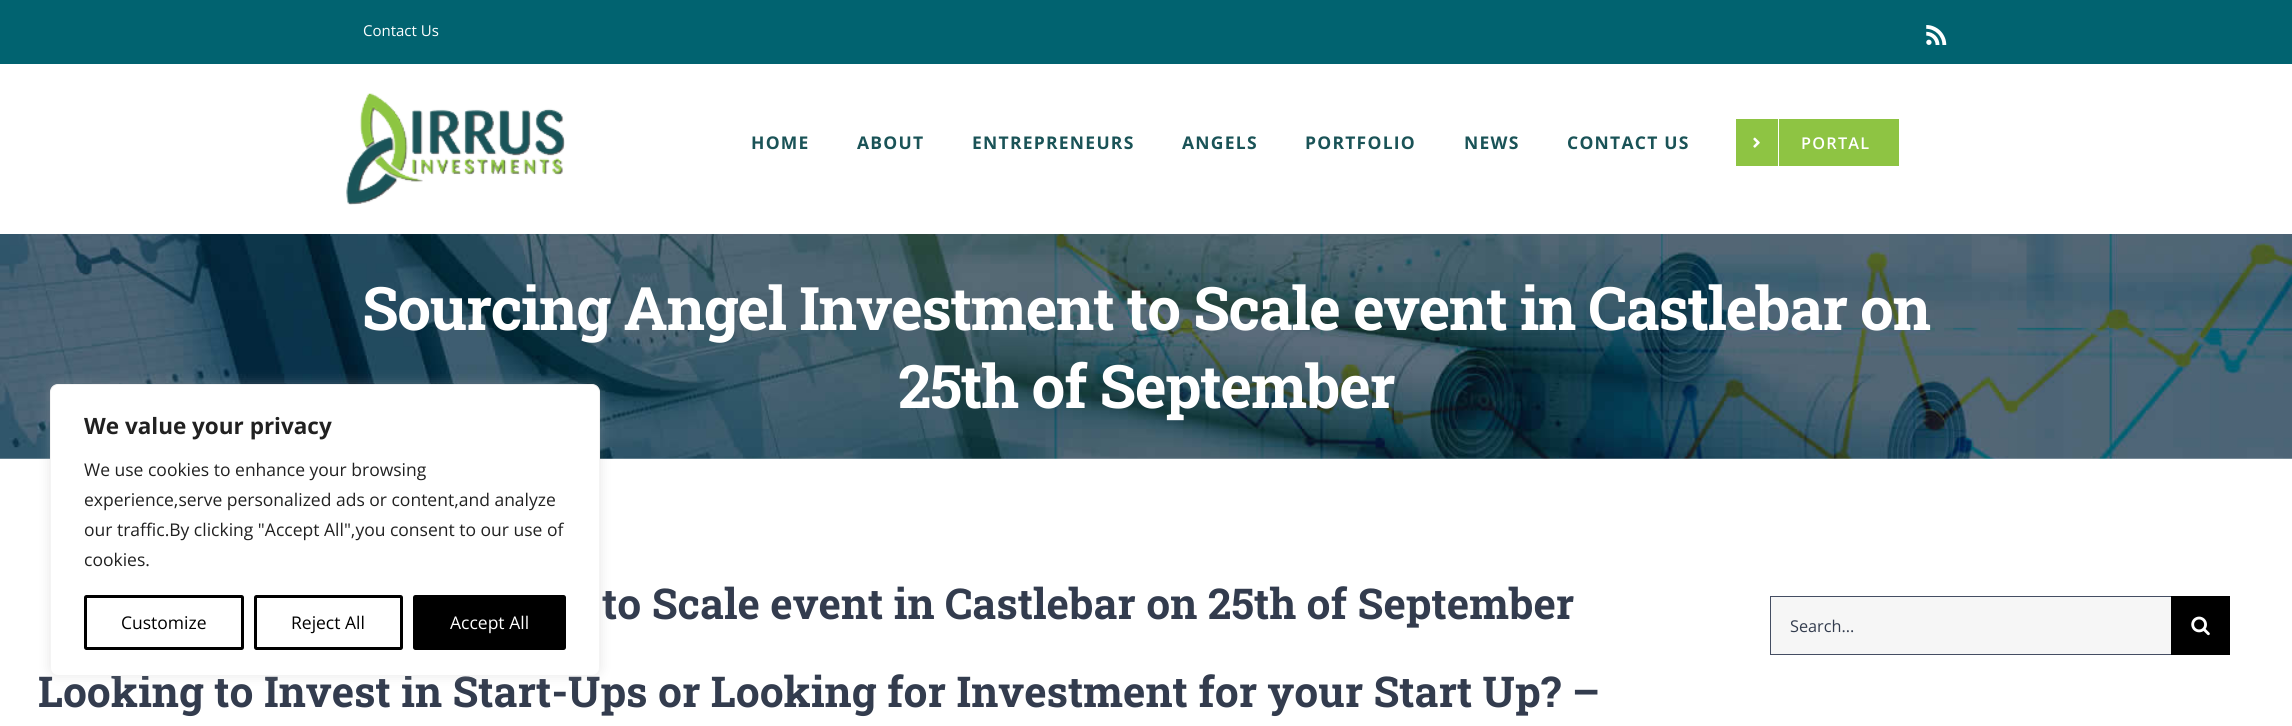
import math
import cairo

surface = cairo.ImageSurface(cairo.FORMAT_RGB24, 2292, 726)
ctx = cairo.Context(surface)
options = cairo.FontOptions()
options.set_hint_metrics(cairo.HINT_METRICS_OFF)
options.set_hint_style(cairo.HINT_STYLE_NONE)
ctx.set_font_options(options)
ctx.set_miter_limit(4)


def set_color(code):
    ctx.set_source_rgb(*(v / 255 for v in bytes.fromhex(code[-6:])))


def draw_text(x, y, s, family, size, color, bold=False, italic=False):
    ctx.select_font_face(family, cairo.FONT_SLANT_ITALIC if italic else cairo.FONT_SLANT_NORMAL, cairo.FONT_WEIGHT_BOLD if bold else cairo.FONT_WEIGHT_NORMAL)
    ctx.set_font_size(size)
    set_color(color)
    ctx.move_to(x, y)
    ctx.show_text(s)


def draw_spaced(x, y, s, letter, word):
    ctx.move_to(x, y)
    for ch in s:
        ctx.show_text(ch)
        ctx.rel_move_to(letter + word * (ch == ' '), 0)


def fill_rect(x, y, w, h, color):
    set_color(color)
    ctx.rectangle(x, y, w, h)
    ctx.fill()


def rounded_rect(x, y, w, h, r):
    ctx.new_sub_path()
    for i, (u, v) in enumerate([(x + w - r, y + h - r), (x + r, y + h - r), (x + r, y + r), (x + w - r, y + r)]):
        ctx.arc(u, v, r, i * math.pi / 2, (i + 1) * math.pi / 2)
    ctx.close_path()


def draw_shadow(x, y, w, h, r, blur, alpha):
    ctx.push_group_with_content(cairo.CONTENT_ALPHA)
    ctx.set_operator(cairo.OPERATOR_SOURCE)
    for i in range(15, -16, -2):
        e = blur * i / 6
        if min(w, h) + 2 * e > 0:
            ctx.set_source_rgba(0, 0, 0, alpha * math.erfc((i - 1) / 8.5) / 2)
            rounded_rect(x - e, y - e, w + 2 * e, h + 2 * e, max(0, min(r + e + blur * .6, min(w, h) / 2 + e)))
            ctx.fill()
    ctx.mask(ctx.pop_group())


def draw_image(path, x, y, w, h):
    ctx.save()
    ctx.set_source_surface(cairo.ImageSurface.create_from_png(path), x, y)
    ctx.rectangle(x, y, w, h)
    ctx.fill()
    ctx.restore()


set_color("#ffffff")
ctx.paint()
fill_rect(0, 0, 2292, 64, "#016370")
draw_text(363, 36, "Contact Us", "Open Sans", 15, "#ffffff")
draw_image("assets/img1.png", 1926, 25, 21, 20)
draw_image("assets/img2.png", 346, 93, 219, 112)
ctx.select_font_face("Open Sans", cairo.FONT_SLANT_NORMAL, cairo.FONT_WEIGHT_BOLD)
ctx.set_font_size(17.5)
set_color("#1a5357")
draw_spaced(751, 149, "HOME", 1.25, 0)
draw_spaced(857, 149, "ABOUT", 1.25, 0)
draw_spaced(972, 149, "ENTREPRENEURS", 1.25, 0)
draw_spaced(1182, 149, "ANGELS", 1.25, 0)
draw_spaced(1305, 149, "PORTFOLIO", 1.25, 0)
draw_spaced(1464, 149, "NEWS", 1.25, 0)
draw_spaced(1567, 149, "CONTACT US", 1.25, 0)
fill_rect(1736, 119, 163, 47, "#8ec443")
fill_rect(1778, 119, 1, 47, "#ffffff")
draw_image("assets/img3.png", 1753, 137, 7, 11)
ctx.select_font_face("Open Sans SemiBold")
ctx.set_font_size(16.25)
draw_spaced(1801, 149, "PORTAL", 1.25, 0)
draw_image("assets/img4.png", 0, 234, 2292, 225)
ctx.select_font_face("Roboto Slab", cairo.FONT_SLANT_NORMAL, cairo.FONT_WEIGHT_BOLD)
ctx.set_font_size(60)
draw_spaced(362, 330, "Sourcing Angel Investment to Scale event in Castlebar on", -1.25, 0)
draw_spaced(898, 408, "25th of September", -1.25, 0)
draw_text(602, 619, "to Scale event in Castlebar on 25th of September", "Roboto Slab", 42.5, "#333c4e", bold=True)
draw_text(38, 707, "Looking to Invest in Start-Ups or Looking for Investment for your Start Up? –", "Roboto Slab", 42.5, "#333c4e", bold=True)
fill_rect(1771, 597, 400, 57, "#f6f6f6")
fill_rect(1770, 596, 401, 1, "#444d62")
fill_rect(1770, 654, 401, 1, "#444d62")
fill_rect(1770, 596, 1, 59, "#444d62")
draw_text(1790, 632, "Search...", "Open Sans", 16.25, "#333c4e")
fill_rect(2171, 596, 59, 59, "#000000")
draw_image("assets/img5.png", 2191, 616, 19, 20)
set_color("#acabab")
draw_shadow(50, 383, 550, 292, 8, 6, 0.3)
set_color("#ffffff")
rounded_rect(50.5, 384.5, 549, 291, 7.5)
ctx.fill_preserve()
set_color("#f4f4f4")
ctx.set_line_width(1)
ctx.stroke()
draw_text(84, 434, "We value your privacy", "Open Sans", 22.5, "#212121", bold=True)
draw_text(84, 476, "We use cookies to enhance your browsing", "Open Sans", 17.5, "#212121")
draw_text(84, 506, "experience,serve personalized ads or content,and analyze", "Open Sans", 17.5, "#212121")
draw_text(84, 536, "our traffic.By clicking \"Accept All\",you consent to our use of", "Open Sans", 17.5, "#212121")
draw_text(84, 566, "cookies.", "Open Sans", 17.5, "#212121")
rounded_rect(85.5, 596.5, 157, 52, 1)
set_color("#000000")
ctx.set_line_width(3)
ctx.stroke()
draw_text(121, 629, "Customize", "Open Sans", 17.5, "#000000")
rounded_rect(255.5, 596.5, 146, 52, 1)
ctx.stroke()
draw_text(291, 629, "Reject All", "Open Sans", 17.5, "#000000")
rounded_rect(414.5, 596.5, 150, 52, 1)
ctx.fill_preserve()
ctx.stroke()
draw_text(450, 629, "Accept All", "Open Sans", 17.5, "#ffffff")
surface.write_to_png("output.png")
